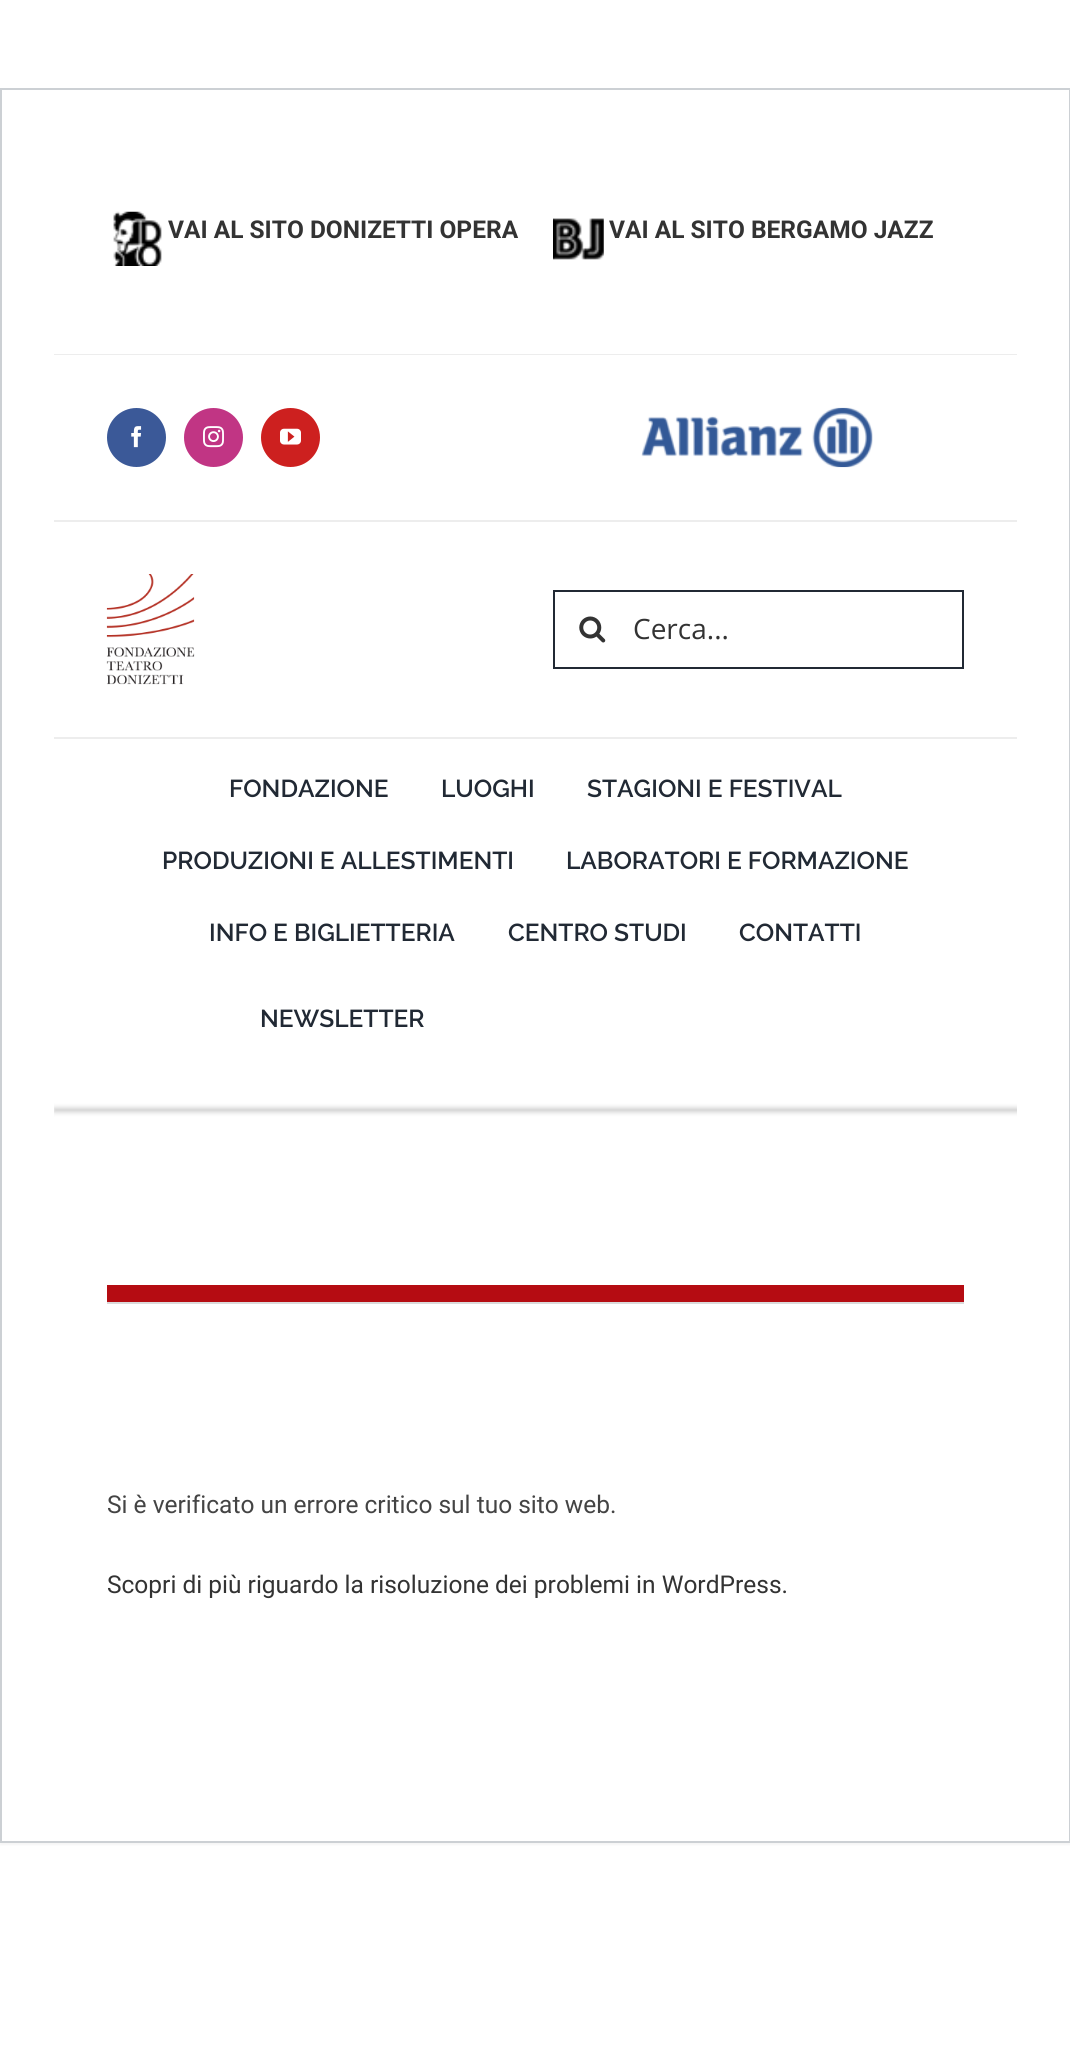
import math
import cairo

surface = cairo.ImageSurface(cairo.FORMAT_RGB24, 1070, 2050)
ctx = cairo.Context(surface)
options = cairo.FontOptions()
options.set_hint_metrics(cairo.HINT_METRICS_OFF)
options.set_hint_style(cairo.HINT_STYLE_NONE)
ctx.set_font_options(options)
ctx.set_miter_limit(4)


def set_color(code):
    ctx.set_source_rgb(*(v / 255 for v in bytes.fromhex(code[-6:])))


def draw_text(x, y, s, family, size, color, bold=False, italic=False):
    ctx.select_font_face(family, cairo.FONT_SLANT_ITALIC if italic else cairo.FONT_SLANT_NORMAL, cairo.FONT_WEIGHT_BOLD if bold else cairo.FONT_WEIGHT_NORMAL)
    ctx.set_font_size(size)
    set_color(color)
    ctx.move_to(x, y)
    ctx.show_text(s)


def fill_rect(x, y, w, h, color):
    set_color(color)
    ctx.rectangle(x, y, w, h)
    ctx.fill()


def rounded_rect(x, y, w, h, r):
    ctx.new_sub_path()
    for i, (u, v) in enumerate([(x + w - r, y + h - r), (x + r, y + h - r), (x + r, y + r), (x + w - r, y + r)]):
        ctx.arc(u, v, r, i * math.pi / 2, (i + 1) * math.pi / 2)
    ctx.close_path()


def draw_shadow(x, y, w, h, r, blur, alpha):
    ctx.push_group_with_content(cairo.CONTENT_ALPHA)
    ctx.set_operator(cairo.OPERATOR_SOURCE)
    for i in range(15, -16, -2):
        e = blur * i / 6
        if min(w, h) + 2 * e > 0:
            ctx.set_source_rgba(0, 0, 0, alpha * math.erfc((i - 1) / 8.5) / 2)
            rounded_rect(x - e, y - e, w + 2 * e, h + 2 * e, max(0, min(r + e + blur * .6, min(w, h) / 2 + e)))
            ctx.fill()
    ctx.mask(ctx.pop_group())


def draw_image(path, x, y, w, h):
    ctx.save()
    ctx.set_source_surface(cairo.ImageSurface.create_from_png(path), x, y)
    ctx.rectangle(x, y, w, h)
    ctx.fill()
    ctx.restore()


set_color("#ffffff")
ctx.paint()
set_color("#000000")
draw_shadow(0, 89, 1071, 1756, 0, 1, 0.04)
set_color("#ffffff")
ctx.rectangle(1, 89, 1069, 1753)
ctx.fill_preserve()
set_color("#ccd0d4")
ctx.stroke()
fill_rect(54, 354, 963, 1, "#ededed")
draw_image("assets/img1.png", 113, 211, 49, 55)
draw_text(168, 238, "VAI AL SITO DONIZETTI OPERA", "Roboto", 24.5, "#333333", bold=True)
draw_image("assets/img2.png", 553, 218, 51, 42)
draw_text(609, 238, "VAI AL SITO BERGAMO JAZZ", "Roboto", 24.5, "#333333", bold=True)
fill_rect(54, 520, 963, 2, "#ededed")
set_color("#3b5998")
ctx.new_path()
ctx.arc(136.5, 437.5, 28.5, 0, 2 * math.pi)
ctx.fill_preserve()
ctx.stroke()
draw_image("assets/img3.png", 131, 426, 11, 22)
set_color("#c13584")
ctx.arc(213.5, 437.5, 28.5, 0, 2 * math.pi)
ctx.fill_preserve()
ctx.stroke()
draw_image("assets/img4.png", 203, 426, 21, 22)
set_color("#cd201f")
ctx.arc(290.5, 437.5, 28.5, 0, 2 * math.pi)
ctx.fill_preserve()
ctx.stroke()
draw_image("assets/img5.png", 280, 428, 21, 17)
draw_image("assets/img6.png", 641, 407, 232, 61)
fill_rect(54, 737, 963, 2, "#ededed")
draw_image("assets/img7.png", 106, 574, 89, 111)
ctx.rectangle(554, 591, 409, 77)
set_color("#212934")
ctx.stroke()
draw_image("assets/img8.png", 579, 616, 27, 27)
draw_text(633, 639, "Cerca...", "Open Sans", 28, "#333333")
draw_text(229, 797, "FONDAZIONE", "Raleway SemiBold", 24.5, "#212934")
draw_text(441, 797, "LUOGHI", "Raleway SemiBold", 24.5, "#212934")
draw_text(587, 797, "STAGIONI E FESTIVAL", "Raleway SemiBold", 24.5, "#212934")
draw_text(162, 869, "PRODUZIONI E ALLESTIMENTI", "Raleway SemiBold", 24.5, "#212934")
draw_text(566, 869, "LABORATORI E FORMAZIONE", "Raleway SemiBold", 24.5, "#212934")
draw_text(209, 941, "INFO E BIGLIETTERIA", "Raleway SemiBold", 24.5, "#212934")
draw_text(508, 941, "CENTRO STUDI", "Raleway SemiBold", 24.5, "#212934")
draw_text(739, 941, "CONTATTI", "Raleway SemiBold", 24.5, "#212934")
draw_text(260, 1027, "NEWSLETTER", "Raleway SemiBold", 24.5, "#212934")
ctx.save()
ctx.rectangle(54, 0, 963, 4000)
ctx.clip()
set_color("#000000")
draw_shadow(54, 1108, 966, 4, 0, 2.5, 0.2)
ctx.restore()
fill_rect(107, 1285, 857, 17, "#b50c12")
fill_rect(107, 1302, 857, 2, "#dadada")
draw_text(107, 1513, "Si è verificato un errore critico sul tuo sito web.", "Roboto", 24.5, "#444444")
draw_text(107, 1593, "Scopri di più riguardo la risoluzione dei problemi in WordPress.", "Roboto", 24.5, "#333333")
surface.write_to_png("output.png")
